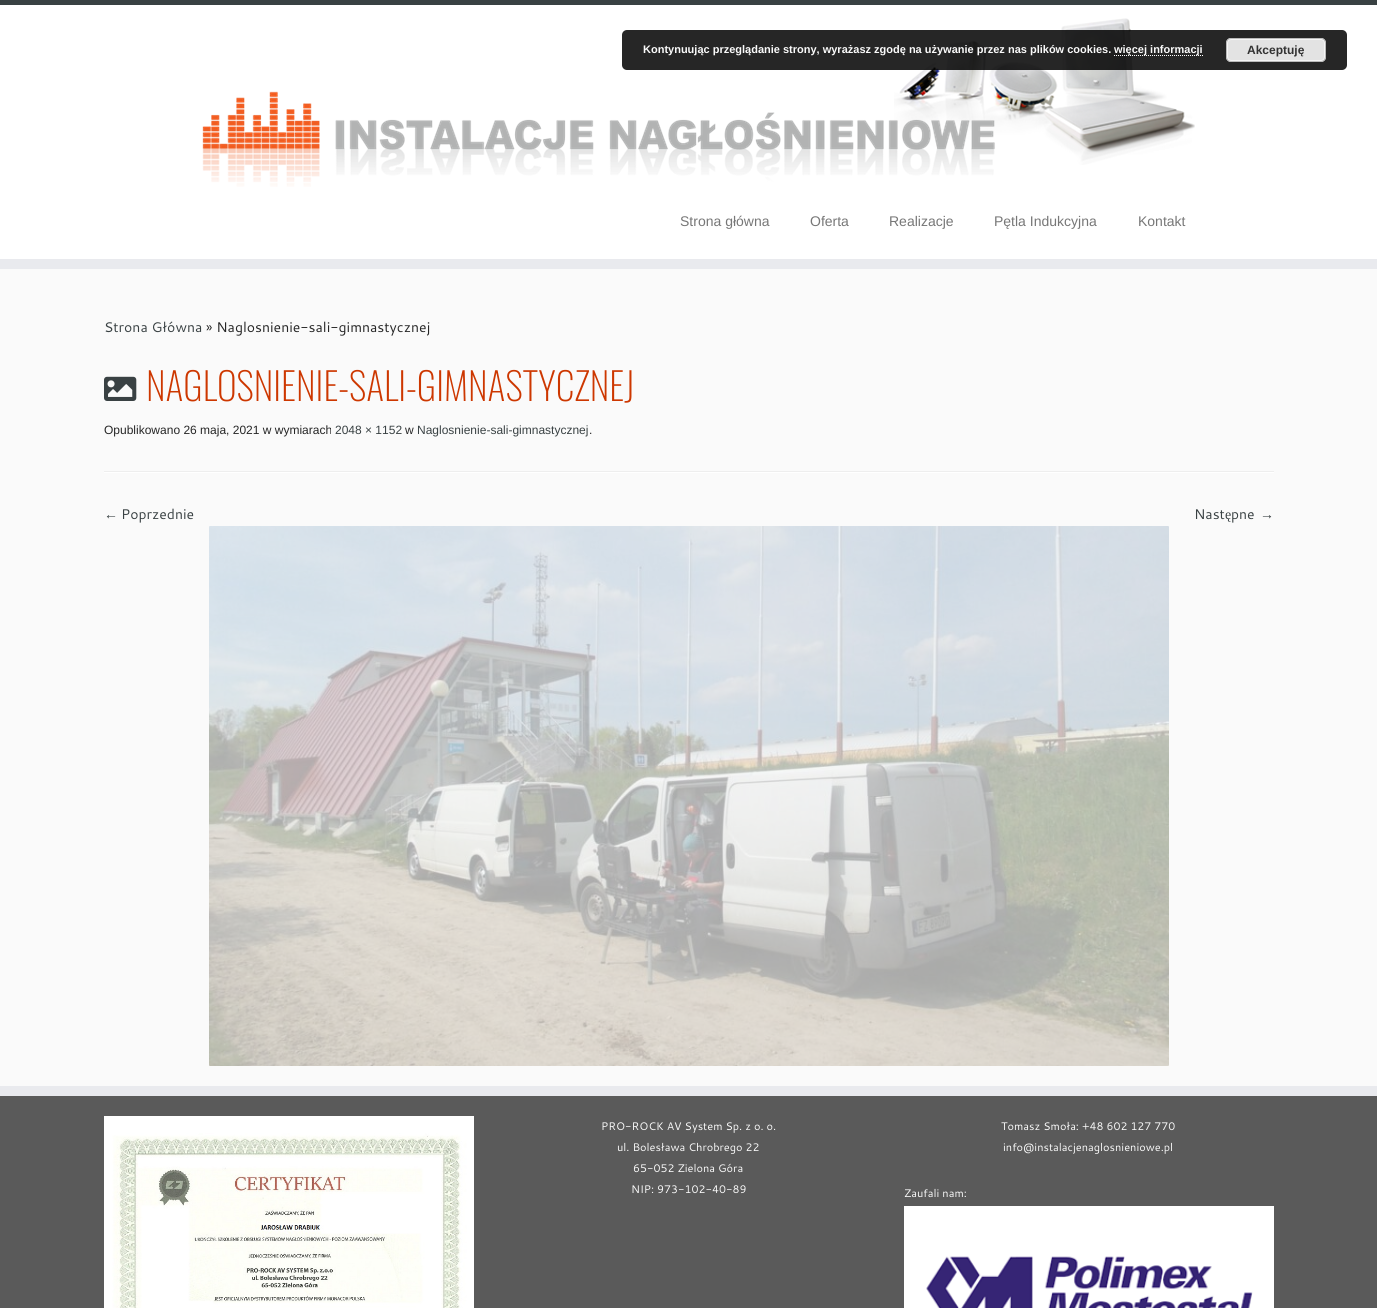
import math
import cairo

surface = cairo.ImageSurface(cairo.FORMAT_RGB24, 1377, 1308)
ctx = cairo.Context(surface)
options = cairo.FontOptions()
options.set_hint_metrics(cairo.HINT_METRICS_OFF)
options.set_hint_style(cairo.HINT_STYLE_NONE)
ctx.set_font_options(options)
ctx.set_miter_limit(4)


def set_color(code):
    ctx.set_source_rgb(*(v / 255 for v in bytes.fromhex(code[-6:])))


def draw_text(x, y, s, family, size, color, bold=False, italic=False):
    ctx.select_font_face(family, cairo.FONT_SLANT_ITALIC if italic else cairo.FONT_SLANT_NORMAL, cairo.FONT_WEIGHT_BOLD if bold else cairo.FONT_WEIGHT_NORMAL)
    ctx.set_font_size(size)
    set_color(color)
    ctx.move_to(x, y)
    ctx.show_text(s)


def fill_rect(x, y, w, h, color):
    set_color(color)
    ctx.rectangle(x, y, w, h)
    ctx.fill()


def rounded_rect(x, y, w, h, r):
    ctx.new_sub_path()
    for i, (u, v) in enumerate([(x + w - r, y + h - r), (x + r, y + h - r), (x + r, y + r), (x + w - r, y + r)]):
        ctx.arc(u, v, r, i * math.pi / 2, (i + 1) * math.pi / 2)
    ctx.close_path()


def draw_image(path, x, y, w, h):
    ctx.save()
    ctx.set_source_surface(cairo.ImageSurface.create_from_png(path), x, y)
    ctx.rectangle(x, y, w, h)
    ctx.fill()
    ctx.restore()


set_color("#fafafa")
ctx.paint()
fill_rect(0, 5, 1377, 254, "#ffffff")
draw_image("assets/img1.png", 202, 18, 993, 169)
ctx.set_source_rgba(0, 0, 0, 0.85)
rounded_rect(622, 30, 725, 40, 5)
ctx.fill()
draw_text(643, 53, "Kontynuując przeglądanie strony, wyrażasz zgodę na używanie przez nas plików cookies.", "Liberation Sans", 11, "#fafafa", bold=True)
ctx.new_path()
ctx.move_to(1114, 55.5)
ctx.line_to(1203, 55.5)
set_color("#ffffff")
ctx.set_line_width(1)
ctx.set_dash([1, 1])
ctx.stroke()
draw_text(1114, 53, "więcej informacji", "Liberation Sans", 11, "#fafafa", bold=True)
set_color("#e3e3e3")
rounded_rect(1226, 38, 100, 24, 5)
ctx.fill()
rounded_rect(1227.5, 39.5, 97, 21, 3.5)
set_color("#f6f6f6")
ctx.set_dash([])
ctx.stroke()
rounded_rect(1226.5, 38.5, 99, 23, 4.5)
set_color("#bbbbbb")
ctx.stroke()
draw_text(1247, 54, "Akceptuję", "Liberation Sans", 12, "#333333", bold=True)
fill_rect(0, 0, 1377, 5, "#394143")
fill_rect(0, 259, 1377, 10, "#e9eaee")
draw_text(680, 226, "Strona główna", "Liberation Sans", 14, "#777777")
draw_text(810, 226, "Oferta", "Liberation Sans", 14, "#777777")
draw_text(889, 226, "Realizacje", "Liberation Sans", 14, "#777777")
draw_text(994, 226, "Pętla Indukcyjna", "Liberation Sans", 14, "#777777")
draw_text(1138, 226, "Kontakt", "Liberation Sans", 14, "#777777")
draw_text(104, 332, "Strona Główna", "Cantarell", 14, "#394143")
draw_text(206, 332, "» Naglosnienie-sali-gimnastycznej", "Cantarell", 14, "#262626")
draw_image("assets/img2.png", 104, 376, 33, 25)
draw_text(146, 401, "NAGLOSNIENIE-SALI-GIMNASTYCZNEJ", "Oswald ExtraLight", 38, "#cd3700")
draw_text(104, 434, "Opublikowano 26 maja, 2021 w wymiarach", "Liberation Sans", 12, "#262626")
draw_text(335, 434, "2048 × 1152", "Liberation Sans", 12, "#394143")
draw_text(405, 434, "w", "Liberation Sans", 12, "#262626")
draw_text(417, 434, "Naglosnienie-sali-gimnastycznej", "Liberation Sans", 12, "#394143")
draw_text(589, 434, ".", "Liberation Sans", 12, "#262626")
fill_rect(104, 471, 1170, 1, "#eeeeee")
fill_rect(104, 472, 1170, 1, "#ffffff")
draw_text(104, 519, "←", "Liberation Serif", 14, "#394143")
draw_text(121, 519, "Poprzednie", "Cantarell", 14, "#394143")
draw_text(1194, 519, "Nast", "Cantarell", 14, "#394143")
draw_text(1225, 519, "ę", "Liberation Serif", 14, "#394143")
draw_text(1231, 519, "pne", "Cantarell", 14, "#394143")
draw_text(1260, 519, "→", "Liberation Serif", 14, "#394143")
draw_image("assets/img3.png", 209, 526, 960, 540)
fill_rect(0, 1096, 1377, 212, "#5a5a5a")
fill_rect(0, 1086, 1377, 10, "#e9eaee")
draw_image("assets/img4.png", 104, 1116, 370, 192)
draw_text(601, 1130, "PRO-ROCK AV System Sp. z o. o.", "Cantarell", 11, "#fafafa")
draw_text(617, 1151, "ul. Bolesława Chrobrego 22", "Cantarell", 11, "#fafafa")
draw_text(633, 1172, "65-052 Zielona Góra", "Cantarell", 11, "#fafafa")
draw_text(631, 1193, "NIP: 973-102-40-89", "Cantarell", 11, "#fafafa")
draw_text(1001, 1130, "Tomasz Smoła: +48 602 127 770", "Cantarell", 11, "#fafafa")
draw_text(1003, 1151, "info@instalacjenaglosnieniowe.pl", "Cantarell", 11, "#fafafa")
draw_text(904, 1197, "Zaufali nam:", "Cantarell", 11, "#fafafa")
draw_image("assets/img5.png", 904, 1206, 370, 102)
surface.write_to_png("output.png")
